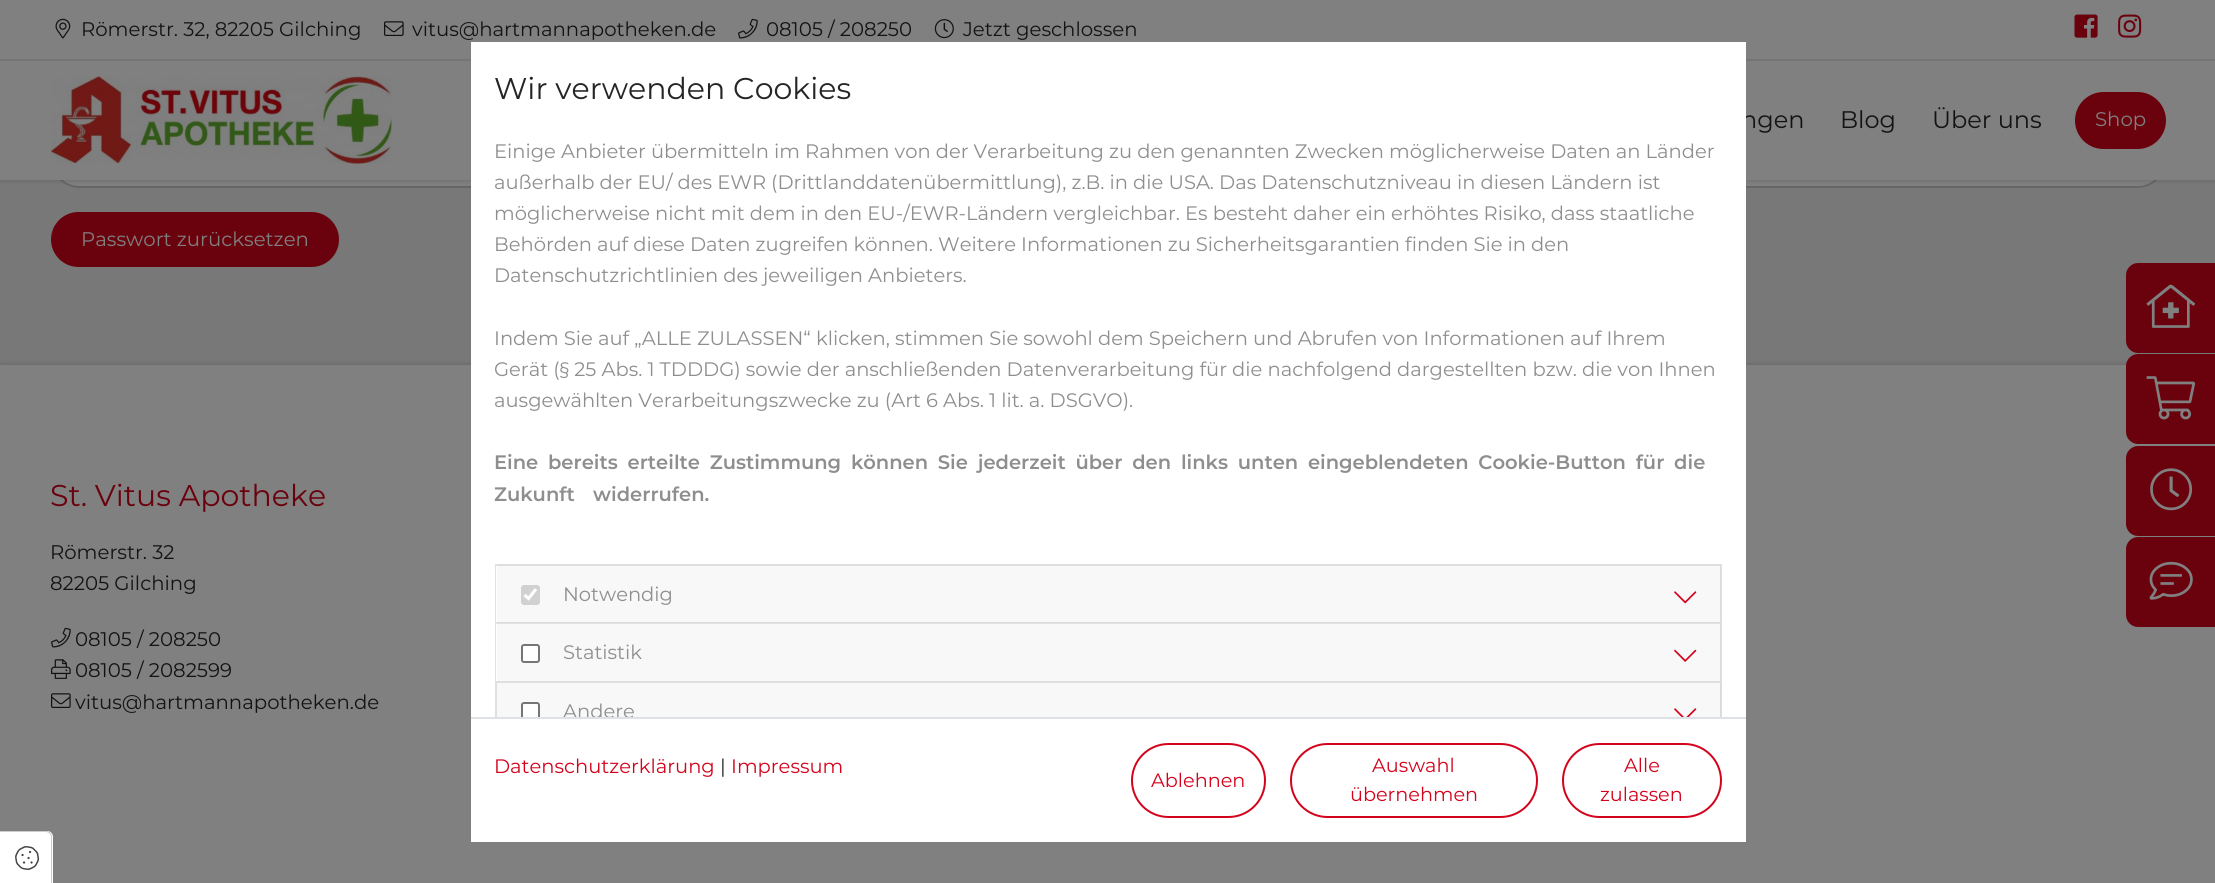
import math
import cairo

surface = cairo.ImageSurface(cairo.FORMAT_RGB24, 2215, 883)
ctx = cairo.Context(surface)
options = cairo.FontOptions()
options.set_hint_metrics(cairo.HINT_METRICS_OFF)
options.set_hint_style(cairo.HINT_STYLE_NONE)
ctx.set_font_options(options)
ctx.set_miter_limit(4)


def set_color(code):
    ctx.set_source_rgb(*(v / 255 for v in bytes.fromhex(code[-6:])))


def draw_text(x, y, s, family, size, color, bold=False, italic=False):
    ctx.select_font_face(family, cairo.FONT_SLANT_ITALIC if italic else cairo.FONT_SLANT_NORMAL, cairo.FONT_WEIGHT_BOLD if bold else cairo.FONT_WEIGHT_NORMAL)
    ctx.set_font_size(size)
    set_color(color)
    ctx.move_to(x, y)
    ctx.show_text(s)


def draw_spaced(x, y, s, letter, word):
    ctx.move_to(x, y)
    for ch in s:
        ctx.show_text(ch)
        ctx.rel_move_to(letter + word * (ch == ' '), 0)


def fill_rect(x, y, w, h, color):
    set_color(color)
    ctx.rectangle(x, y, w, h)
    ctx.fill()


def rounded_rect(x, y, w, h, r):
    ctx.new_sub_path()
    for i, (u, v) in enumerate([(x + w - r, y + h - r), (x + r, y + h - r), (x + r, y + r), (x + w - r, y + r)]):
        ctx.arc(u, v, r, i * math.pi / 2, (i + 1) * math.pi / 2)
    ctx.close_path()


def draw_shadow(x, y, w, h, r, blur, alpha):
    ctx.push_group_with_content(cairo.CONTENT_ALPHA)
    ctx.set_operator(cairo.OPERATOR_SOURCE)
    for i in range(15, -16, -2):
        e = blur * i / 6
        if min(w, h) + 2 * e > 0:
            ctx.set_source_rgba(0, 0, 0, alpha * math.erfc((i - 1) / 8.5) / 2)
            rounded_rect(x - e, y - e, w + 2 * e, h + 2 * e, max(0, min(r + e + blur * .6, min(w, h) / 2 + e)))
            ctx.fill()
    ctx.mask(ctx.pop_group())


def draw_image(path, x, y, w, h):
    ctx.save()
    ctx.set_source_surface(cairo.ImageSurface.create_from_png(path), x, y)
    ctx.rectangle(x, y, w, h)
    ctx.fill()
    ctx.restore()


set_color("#787878")
ctx.paint()
set_color("#808080")
rounded_rect(51, 131, 2115, 57, 28.5)
ctx.fill()
rounded_rect(52, 132, 2113, 55, 27.5)
ctx.set_source_rgba(0, 0, 0, 0.2)
ctx.stroke()
set_color("#000000")
draw_shadow(0, 2, 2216, 180, 0, 2, 0.1)
fill_rect(0, 0, 2215, 180, "#808080")
fill_rect(0, 59, 2215, 2, "#757575")
draw_image("assets/img1.png", 55, 18, 16, 21)
draw_text(81, 36, "Römerstr. 32, 82205 Gilching", "Montserrat", 19.7, "#131313")
draw_image("assets/img2.png", 384, 21, 20, 15)
draw_text(412, 36, "vitus@hartmannapotheken.de", "Montserrat", 19.7, "#131313")
draw_image("assets/img3.png", 738, 18, 20, 21)
draw_text(766, 36, "08105 / 208250", "Montserrat", 19.7, "#131313")
draw_image("assets/img4.png", 934, 19, 20, 20)
draw_text(963, 36, "Jetzt geschlossen", "Montserrat", 19.7, "#131313")
draw_image("assets/img5.png", 2074, 14, 24, 24)
draw_image("assets/img6.png", 2118, 14, 24, 24)
draw_image("assets/img7.png", 51, 76, 341, 88)
draw_text(1741, 128, "ngen", "Montserrat", 24, "#131313")
draw_text(1840, 128, "Blog", "Montserrat", 24, "#131313")
draw_text(1932, 128, "Über uns", "Montserrat", 24, "#131313")
set_color("#6a020e")
rounded_rect(2076, 93, 89, 55, 27.5)
ctx.fill_preserve()
ctx.stroke()
draw_text(2095, 126, "Shop", "Montserrat", 19.7, "#808080")
set_color("#6a020e")
rounded_rect(52, 213, 286, 53, 26.5)
ctx.fill_preserve()
ctx.stroke()
draw_text(81, 246, "Passwort zurücksetzen", "Montserrat", 19.7, "#808080")
set_color("#000000")
draw_shadow(0, 363, 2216, 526, 0, 2, 0.1)
fill_rect(0, 365, 2215, 518, "#808080")
draw_text(50, 506, "St. Vitus Apotheke", "Montserrat", 30, "#6a020e")
draw_text(50, 559, "Römerstr. 32", "Montserrat", 19.7, "#131313")
draw_text(50, 590, "82205 Gilching", "Montserrat", 19.7, "#131313")
draw_image("assets/img3.png", 51, 627, 20, 21)
draw_text(75, 646, "08105 / 208250", "Montserrat", 19.7, "#131313")
draw_image("assets/img8.png", 51, 659, 20, 20)
draw_text(75, 677, "08105 / 2082599", "Montserrat", 19.7, "#131313")
draw_image("assets/img2.png", 51, 693, 20, 15)
draw_text(75, 709, "vitus@hartmannapotheken.de", "Montserrat", 19.7, "#131313")
set_color("#6a020e")
ctx.new_path()
ctx.move_to(2138, 263)
ctx.line_to(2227, 263)
ctx.line_to(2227, 353)
ctx.line_to(2138, 353)
ctx.curve_to(2131.5, 353, 2126, 347.5, 2126, 341)
ctx.line_to(2126, 275)
ctx.curve_to(2126, 268.5, 2131.5, 263, 2138, 263)
ctx.close_path()
ctx.fill()
draw_image("assets/img9.png", 2146, 284, 50, 44)
ctx.new_path()
ctx.move_to(2138, 354)
ctx.line_to(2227, 354)
ctx.line_to(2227, 444)
ctx.line_to(2138, 444)
ctx.curve_to(2131.5, 444, 2126, 438.5, 2126, 432)
ctx.line_to(2126, 366)
ctx.curve_to(2126, 359.5, 2131.5, 354, 2138, 354)
ctx.close_path()
ctx.fill()
draw_image("assets/img10.png", 2146, 376, 50, 44)
ctx.new_path()
ctx.move_to(2138, 446)
ctx.line_to(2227, 446)
ctx.line_to(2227, 536)
ctx.line_to(2138, 536)
ctx.curve_to(2131.5, 536, 2126, 530.5, 2126, 524)
ctx.line_to(2126, 458)
ctx.curve_to(2126, 451.5, 2131.5, 446, 2138, 446)
ctx.close_path()
ctx.fill()
draw_image("assets/img11.png", 2150, 468, 42, 43)
ctx.new_path()
ctx.move_to(2138, 537)
ctx.line_to(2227, 537)
ctx.line_to(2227, 627)
ctx.line_to(2138, 627)
ctx.curve_to(2131.5, 627, 2126, 621.5, 2126, 615)
ctx.line_to(2126, 549)
ctx.curve_to(2126, 542.5, 2131.5, 537, 2138, 537)
ctx.close_path()
ctx.fill()
draw_image("assets/img12.png", 2149, 561, 44, 39)
fill_rect(471, 42, 1275, 800, "#ffffff")
draw_text(494, 99, "Wir verwenden Cookies", "Montserrat", 30, "#252525")
draw_text(494, 158, "Einige Anbieter übermitteln im Rahmen von der Verarbeitung zu den genannten Zwecken möglicherweise Daten an Länder", "Montserrat", 19.5, "#8e8e8e")
draw_text(494, 189, "außerhalb der EU/ des EWR (Drittlanddatenübermittlung), z.B. in die USA. Das Datenschutzniveau in diesen Ländern ist", "Montserrat", 19.5, "#8e8e8e")
draw_text(494, 220, "möglicherweise nicht mit dem in den EU-/EWR-Ländern vergleichbar. Es besteht daher ein erhöhtes Risiko, dass staatliche", "Montserrat", 19.5, "#8e8e8e")
draw_text(494, 251, "Behörden auf diese Daten zugreifen können. Weitere Informationen zu Sicherheitsgarantien finden Sie in den", "Montserrat", 19.5, "#8e8e8e")
draw_text(494, 282, "Datenschutzrichtlinien des jeweiligen Anbieters.", "Montserrat", 19.5, "#8e8e8e")
draw_text(494, 345, "Indem Sie auf „ALLE ZULASSEN“ klicken, stimmen Sie sowohl dem Speichern und Abrufen von Informationen auf Ihrem", "Montserrat", 19.5, "#8e8e8e")
draw_text(494, 376, "Gerät (§ 25 Abs. 1 TDDDG) sowie der anschließenden Datenverarbeitung für die nachfolgend dargestellten bzw. die von Ihnen", "Montserrat", 19.5, "#8e8e8e")
draw_text(494, 407, "ausgewählten Verarbeitungszwecke zu (Art 6 Abs. 1 lit. a. DSGVO).", "Montserrat", 19.5, "#8e8e8e")
ctx.select_font_face("Montserrat SemiBold")
draw_spaced(494, 469, "Eine bereits erteilte Zustimmung können Sie jederzeit über den links unten eingeblendeten Cookie-Button für die", 0, 4.4)
draw_spaced(494, 501, "Zukunft widerrufen.", 0, 13)
set_color("#dfdfdf")
ctx.new_path()
ctx.move_to(495, 564)
ctx.line_to(1722, 564)
ctx.line_to(1720, 566)
ctx.line_to(496, 566)
ctx.close_path()
ctx.fill()
ctx.set_source_rgba(0, 0, 0, 0.12)
ctx.new_path()
ctx.move_to(1722, 564)
ctx.line_to(1722, 622)
ctx.line_to(1720, 622)
ctx.line_to(1720, 566)
ctx.close_path()
ctx.fill()
ctx.new_path()
ctx.move_to(495, 622)
ctx.line_to(495, 564)
ctx.line_to(496, 566)
ctx.line_to(496, 622)
ctx.close_path()
ctx.fill()
ctx.set_source_rgba(0, 0, 0, 0.03)
ctx.rectangle(497, 566, 1224, 57)
ctx.fill()
set_color("#d1d1d1")
rounded_rect(521, 585, 19, 20, 3)
ctx.fill()
ctx.new_path()
ctx.move_to(524.5, 595)
ctx.line_to(528.5, 598.5)
ctx.line_to(536, 589)
set_color("#ffffff")
ctx.set_line_width(3.1)
ctx.stroke()
draw_text(563, 601, "Notwendig", "Montserrat", 19.5, "#8e8e8e")
draw_image("assets/img13.png", 1674, 591, 23, 13)
ctx.set_source_rgba(0, 0, 0, 0.12)
ctx.new_path()
ctx.move_to(495, 622)
ctx.line_to(1722, 622)
ctx.line_to(1720, 624)
ctx.line_to(496, 624)
ctx.close_path()
ctx.fill()
ctx.new_path()
ctx.move_to(1722, 622)
ctx.line_to(1722, 681)
ctx.line_to(1720, 681)
ctx.line_to(1720, 624)
ctx.close_path()
ctx.fill()
ctx.new_path()
ctx.move_to(495, 681)
ctx.line_to(495, 622)
ctx.line_to(496, 624)
ctx.line_to(496, 681)
ctx.close_path()
ctx.fill()
ctx.set_source_rgba(0, 0, 0, 0.03)
ctx.rectangle(497, 624, 1224, 57)
ctx.fill()
set_color("#ffffff")
rounded_rect(522, 645, 17, 17, 2)
ctx.fill_preserve()
set_color("#767676")
ctx.set_line_width(2)
ctx.stroke()
draw_text(563, 659, "Statistik", "Montserrat", 19.5, "#8e8e8e")
draw_image("assets/img14.png", 1674, 649, 23, 13)
fill_rect(471, 717, 1275, 2, "#dee2e6")
ctx.save()
ctx.rectangle(471, 135, 1275, 582)
ctx.clip()
ctx.rectangle(496, 682, 1225, 58)
set_color("#dfdfdf")
ctx.stroke()
ctx.restore()
ctx.set_source_rgba(0, 0, 0, 0.03)
ctx.rectangle(497, 683, 1224, 34)
ctx.fill()
set_color("#ffffff")
ctx.new_path()
ctx.move_to(524, 702)
ctx.line_to(537, 702)
ctx.curve_to(538.5, 702, 540, 703.5, 540, 705)
ctx.line_to(540, 717)
ctx.line_to(521, 717)
ctx.line_to(521, 705)
ctx.curve_to(521, 703.5, 522.5, 702, 524, 702)
ctx.close_path()
ctx.fill()
ctx.save()
ctx.rectangle(497, 683, 1224, 34)
ctx.clip()
rounded_rect(522, 703, 17, 18, 2)
set_color("#767676")
ctx.stroke()
draw_text(563, 718, "Andere", "Montserrat", 19.5, "#8e8e8e")
ctx.restore()
draw_image("assets/img15.png", 1674, 708, 23, 9)
draw_text(494, 773, "Datenschutzerklärung", "Montserrat", 19.5, "#d3031c")
draw_text(720, 773, "|", "Montserrat", 19.5, "#252525")
draw_text(731, 773, "Impressum", "Montserrat", 19.5, "#d3031c")
rounded_rect(1132, 744, 133, 73, 36.5)
ctx.stroke()
draw_text(1151, 787, "Ablehnen", "Montserrat", 19.25, "#d3031c")
rounded_rect(1291, 744, 246, 73, 36.5)
ctx.stroke()
draw_text(1372, 772, "Auswahl", "Montserrat", 19.25, "#d3031c")
draw_text(1350, 801, "übernehmen", "Montserrat", 19.25, "#d3031c")
rounded_rect(1563, 744, 158, 73, 36.5)
ctx.stroke()
draw_text(1624, 772, "Alle", "Montserrat", 19.25, "#d3031c")
draw_text(1600, 801, "zulassen", "Montserrat", 19.25, "#d3031c")
set_color("#ffffff")
ctx.new_path()
ctx.move_to(0, 831)
ctx.line_to(47, 831)
ctx.curve_to(50.5, 831, 53, 833.5, 53, 837)
ctx.line_to(53, 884)
ctx.line_to(0, 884)
ctx.close_path()
ctx.fill()
set_color("#cccccc")
ctx.set_fill_rule(cairo.FILL_RULE_EVEN_ODD)
ctx.new_path()
ctx.move_to(0, 831)
ctx.line_to(46, 831)
ctx.curve_to(50, 831, 52, 834, 52, 837)
ctx.line_to(52, 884)
ctx.line_to(0, 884)
ctx.close_path()
ctx.move_to(0, 832)
ctx.line_to(46, 832)
ctx.curve_to(49, 832, 51, 835, 51, 837)
ctx.line_to(51, 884)
ctx.line_to(0, 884)
ctx.close_path()
ctx.fill()
draw_image("assets/img16.png", 15, 846, 24, 24)
surface.write_to_png("output.png")
